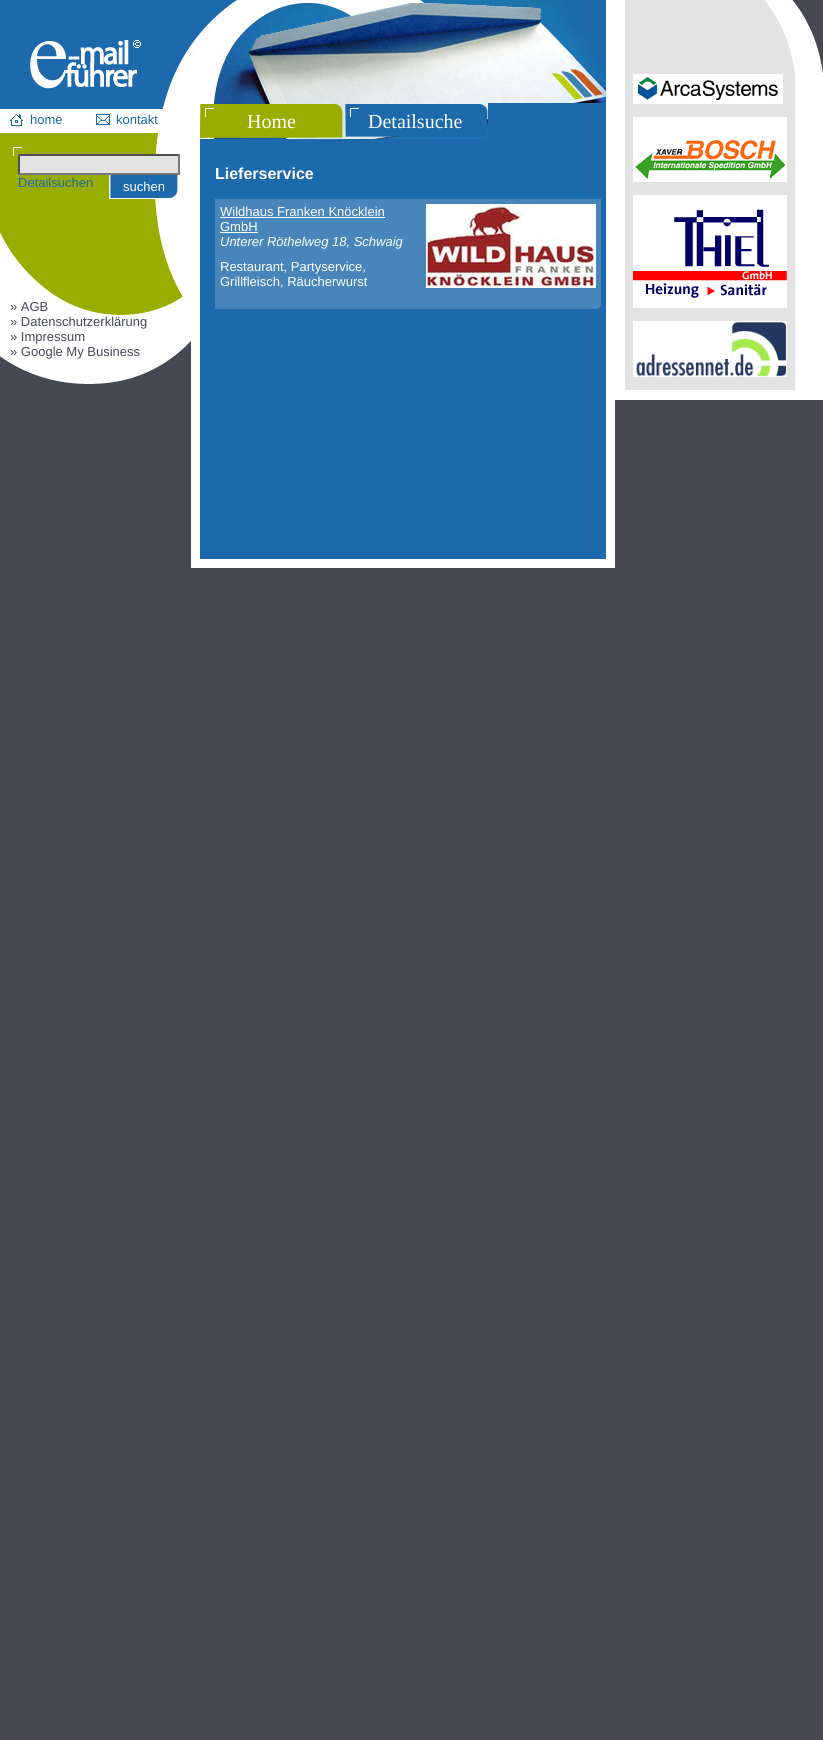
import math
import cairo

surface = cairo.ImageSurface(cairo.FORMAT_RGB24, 823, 1740)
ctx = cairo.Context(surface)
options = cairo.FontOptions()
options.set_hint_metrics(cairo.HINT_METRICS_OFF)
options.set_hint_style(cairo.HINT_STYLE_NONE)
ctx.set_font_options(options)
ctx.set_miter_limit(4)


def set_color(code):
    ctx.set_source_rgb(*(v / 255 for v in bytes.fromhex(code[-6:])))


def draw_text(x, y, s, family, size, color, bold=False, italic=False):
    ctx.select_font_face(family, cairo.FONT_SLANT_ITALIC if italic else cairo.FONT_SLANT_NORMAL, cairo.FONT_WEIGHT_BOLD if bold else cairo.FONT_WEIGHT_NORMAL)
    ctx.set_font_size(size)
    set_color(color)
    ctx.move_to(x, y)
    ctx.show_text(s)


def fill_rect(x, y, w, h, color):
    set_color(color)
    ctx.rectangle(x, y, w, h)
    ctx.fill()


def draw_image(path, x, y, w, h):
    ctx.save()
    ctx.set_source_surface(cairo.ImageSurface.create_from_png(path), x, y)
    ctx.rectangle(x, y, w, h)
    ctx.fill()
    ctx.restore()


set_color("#454954")
ctx.paint()
fill_rect(0, 0, 164, 103, "#1c69ab")
draw_image("assets/img1.png", 164, 0, 442, 103)
fill_rect(606, 0, 9, 559, "#ffffff")
draw_image("assets/img2.png", 30, 40, 111, 49)
draw_image("assets/img3.png", 0, 103, 191, 281)
draw_image("assets/img4.png", 10, 114, 13, 12)
draw_text(30, 124, "home", "Liberation Sans", 13, "#1c69ab")
draw_image("assets/img5.png", 96, 114, 14, 11)
draw_text(116, 124, "kontakt", "Liberation Sans", 13, "#1c69ab")
fill_rect(18, 154, 162, 21, "#e3e3e3")
set_color("#4f4f4f")
ctx.new_path()
ctx.move_to(18, 154)
ctx.line_to(180, 154)
ctx.line_to(178, 156)
ctx.line_to(20, 156)
ctx.close_path()
ctx.fill()
set_color("#767676")
ctx.new_path()
ctx.move_to(180, 154)
ctx.line_to(180, 175)
ctx.line_to(178, 173)
ctx.line_to(178, 156)
ctx.close_path()
ctx.fill()
ctx.new_path()
ctx.move_to(180, 175)
ctx.line_to(18, 175)
ctx.line_to(20, 173)
ctx.line_to(178, 173)
ctx.close_path()
ctx.fill()
set_color("#4f4f4f")
ctx.new_path()
ctx.move_to(18, 175)
ctx.line_to(18, 154)
ctx.line_to(20, 156)
ctx.line_to(20, 173)
ctx.close_path()
ctx.fill()
draw_text(18, 187, "Detailsuchen", "Liberation Sans", 13, "#1c69ab")
draw_image("assets/img6.png", 109, 175, 69, 24)
draw_text(123, 191, "suchen", "Liberation Sans", 13, "#ffffff")
draw_text(10, 311, "» AGB", "Liberation Sans", 13, "#454954")
draw_text(10, 326, "» Datenschutzerklärung", "Liberation Sans", 13, "#454954")
draw_text(10, 341, "» Impressum", "Liberation Sans", 13, "#454954")
draw_text(10, 356, "» Google My Business", "Liberation Sans", 13, "#454954")
fill_rect(200, 559, 415, 9, "#ffffff")
fill_rect(191, 103, 9, 465, "#ffffff")
fill_rect(488, 103, 118, 36, "#1c69ab")
draw_image("assets/img7.png", 200, 103, 143, 36)
draw_text(247, 128, "Home", "Liberation Serif", 20, "#ffffff")
draw_image("assets/img8.png", 343, 103, 145, 36)
draw_text(368, 128, "Detailsuche", "Liberation Serif", 20, "#ffffff")
fill_rect(200, 139, 406, 420, "#1c69ab")
draw_text(215, 179, "Lieferservice", "Liberation Sans", 16, "#ffffff", bold=True)
set_color("#4785bb")
ctx.new_path()
ctx.move_to(215, 199)
ctx.line_to(601, 199)
ctx.line_to(601, 304)
ctx.curve_to(601, 307, 599, 309, 596, 309)
ctx.line_to(215, 309)
ctx.close_path()
ctx.fill()
draw_text(220, 216, "Wildhaus Franken Knöcklein", "Liberation Sans", 13, "#ffffff")
fill_rect(220, 217, 165, 1, "#ffffff")
draw_text(220, 231, "GmbH", "Liberation Sans", 13, "#ffffff")
fill_rect(220, 232, 38, 1, "#ffffff")
draw_text(220, 246, "Unterer Röthelweg 18, Schwaig", "Liberation Sans", 13, "#ffffff", italic=True)
draw_text(220, 271, "Restaurant, Partyservice,", "Liberation Sans", 13, "#ffffff")
draw_text(220, 286, "Grillfleisch, Räucherwurst", "Liberation Sans", 13, "#ffffff")
draw_image("assets/img9.png", 426, 204, 170, 84)
draw_image("assets/img10.png", 625, 0, 198, 390)
fill_rect(625, 390, 198, 10, "#ffffff")
fill_rect(615, 0, 10, 400, "#ffffff")
draw_image("assets/img11.png", 764, 0, 59, 74)
draw_image("assets/img12.png", 633, 74, 150, 30)
draw_image("assets/img13.png", 633, 117, 154, 65)
draw_image("assets/img14.png", 633, 195, 154, 113)
draw_image("assets/img15.png", 633, 321, 154, 56)
surface.write_to_png("output.png")
